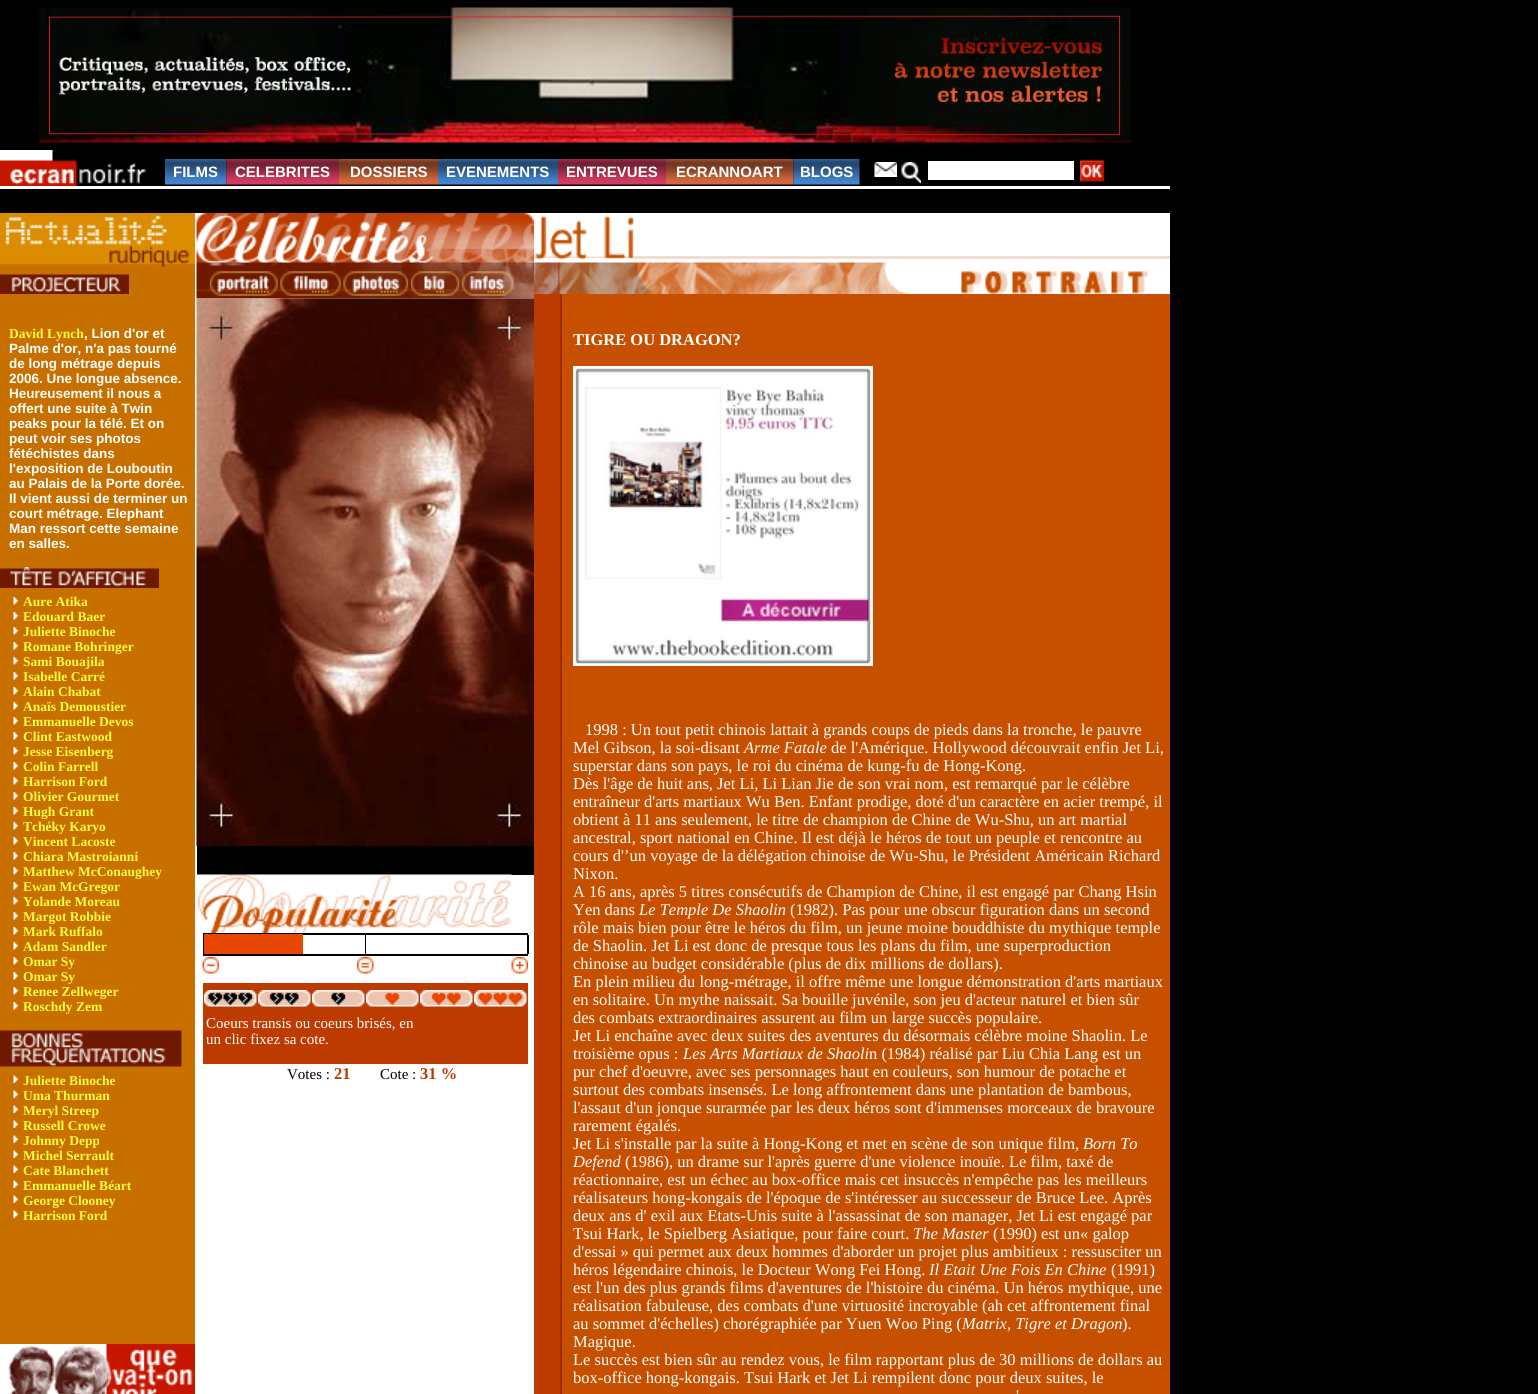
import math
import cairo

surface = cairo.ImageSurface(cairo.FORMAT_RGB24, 1538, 1394)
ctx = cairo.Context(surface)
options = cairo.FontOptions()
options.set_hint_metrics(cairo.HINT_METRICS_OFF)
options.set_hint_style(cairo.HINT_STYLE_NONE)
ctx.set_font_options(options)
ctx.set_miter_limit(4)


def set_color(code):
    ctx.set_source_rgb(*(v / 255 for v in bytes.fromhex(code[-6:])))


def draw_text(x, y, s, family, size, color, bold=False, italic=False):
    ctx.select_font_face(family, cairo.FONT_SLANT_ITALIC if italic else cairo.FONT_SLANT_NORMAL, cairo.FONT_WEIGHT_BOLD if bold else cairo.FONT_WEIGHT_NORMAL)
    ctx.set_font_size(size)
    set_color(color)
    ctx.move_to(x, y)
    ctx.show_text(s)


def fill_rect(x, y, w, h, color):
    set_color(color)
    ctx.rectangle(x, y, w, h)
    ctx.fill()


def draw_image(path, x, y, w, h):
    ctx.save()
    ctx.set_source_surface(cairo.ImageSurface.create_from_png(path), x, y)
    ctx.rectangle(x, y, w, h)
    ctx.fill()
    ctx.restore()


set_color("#000000")
ctx.paint()
draw_image("assets/img1.png", 39, 7, 1092, 136)
draw_image("assets/img2.png", 0, 150, 146, 36)
draw_image("assets/img3.png", 165, 159, 62, 26)
draw_text(173, 177, "FILMS", "Liberation Sans", 15, "#ffffff", bold=True)
draw_image("assets/img4.png", 226, 159, 113, 26)
draw_text(235, 177, "CELEBRITES", "Liberation Sans", 15, "#ffffff", bold=True)
draw_image("assets/img5.png", 339, 159, 99, 26)
draw_text(350, 177, "DOSSIERS", "Liberation Sans", 15, "#ffffff", bold=True)
draw_image("assets/img6.png", 438, 159, 120, 26)
draw_text(446, 177, "EVENEMENTS", "Liberation Sans", 15, "#ffffff", bold=True)
draw_image("assets/img7.png", 558, 159, 108, 26)
draw_text(566, 177, "ENTREVUES", "Liberation Sans", 15, "#ffffff", bold=True)
draw_image("assets/img8.png", 666, 159, 128, 26)
draw_text(676, 177, "ECRANNOART", "Liberation Sans", 15, "#ffffff", bold=True)
draw_image("assets/img9.png", 793, 159, 67, 26)
draw_text(800, 177, "BLOGS", "Liberation Sans", 15, "#ffffff", bold=True)
draw_image("assets/img10.png", 874, 162, 23, 15)
draw_image("assets/img11.png", 901, 162, 20, 21)
fill_rect(928, 161, 146, 19, "#ffffff")
draw_image("assets/img12.png", 1080, 160, 24, 22)
fill_rect(0, 186, 1170, 3, "#ffffff")
fill_rect(195, 213, 339, 1181, "#ffffff")
fill_rect(0, 267, 195, 1077, "#c77000")
draw_image("assets/img13.png", 0, 213, 195, 54)
draw_image("assets/img14.png", 0, 274, 129, 20)
draw_text(9, 338, "David Lynch", "Liberation Serif", 13.5, "#fffd3c", bold=True)
draw_text(84, 338, ", Lion d'or et", "Liberation Sans", 13.5, "#ffffff", bold=True)
draw_text(9, 353, "Palme d'or, n'a pas tourné", "Liberation Sans", 13.5, "#ffffff", bold=True)
draw_text(9, 368, "de long métrage depuis", "Liberation Sans", 13.5, "#ffffff", bold=True)
draw_text(9, 383, "2006. Une longue absence.", "Liberation Sans", 13.5, "#ffffff", bold=True)
draw_text(9, 398, "Heureusement il nous a", "Liberation Sans", 13.5, "#ffffff", bold=True)
draw_text(9, 413, "offert une suite à Twin", "Liberation Sans", 13.5, "#ffffff", bold=True)
draw_text(9, 428, "peaks pour la télé. Et on", "Liberation Sans", 13.5, "#ffffff", bold=True)
draw_text(9, 443, "peut voir ses photos", "Liberation Sans", 13.5, "#ffffff", bold=True)
draw_text(9, 458, "fétéchistes dans", "Liberation Sans", 13.5, "#ffffff", bold=True)
draw_text(9, 473, "l'exposition de Louboutin", "Liberation Sans", 13.5, "#ffffff", bold=True)
draw_text(9, 488, "au Palais de la Porte dorée.", "Liberation Sans", 13.5, "#ffffff", bold=True)
draw_text(9, 503, "Il vient aussi de terminer un", "Liberation Sans", 13.5, "#ffffff", bold=True)
draw_text(9, 518, "court métrage. Elephant", "Liberation Sans", 13.5, "#ffffff", bold=True)
draw_text(9, 533, "Man ressort cette semaine", "Liberation Sans", 13.5, "#ffffff", bold=True)
draw_text(9, 548, "en salles.", "Liberation Sans", 13.5, "#ffffff", bold=True)
draw_image("assets/img15.png", 0, 567, 159, 21)
draw_image("assets/img16.png", 13, 597, 5, 8)
draw_text(23, 606, "Aure Atika", "Liberation Serif", 13.5, "#fffd3c", bold=True)
draw_image("assets/img16.png", 13, 612, 5, 8)
draw_text(23, 621, "Edouard Baer", "Liberation Serif", 13.5, "#fffd3c", bold=True)
draw_image("assets/img16.png", 13, 627, 5, 8)
draw_text(23, 636, "Juliette Binoche", "Liberation Serif", 13.5, "#fffd3c", bold=True)
draw_image("assets/img16.png", 13, 642, 5, 8)
draw_text(23, 651, "Romane Bohringer", "Liberation Serif", 13.5, "#fffd3c", bold=True)
draw_image("assets/img16.png", 13, 657, 5, 8)
draw_text(23, 666, "Sami Bouajila", "Liberation Serif", 13.5, "#fffd3c", bold=True)
draw_image("assets/img16.png", 13, 672, 5, 8)
draw_text(23, 681, "Isabelle Carré", "Liberation Serif", 13.5, "#fffd3c", bold=True)
draw_image("assets/img16.png", 13, 687, 5, 8)
draw_text(23, 696, "Alain Chabat", "Liberation Serif", 13.5, "#fffd3c", bold=True)
draw_image("assets/img16.png", 13, 702, 5, 8)
draw_text(23, 711, "Anaïs Demoustier", "Liberation Serif", 13.5, "#fffd3c", bold=True)
draw_image("assets/img16.png", 13, 717, 5, 8)
draw_text(23, 726, "Emmanuelle Devos", "Liberation Serif", 13.5, "#fffd3c", bold=True)
draw_image("assets/img16.png", 13, 732, 5, 8)
draw_text(23, 741, "Clint Eastwood", "Liberation Serif", 13.5, "#fffd3c", bold=True)
draw_image("assets/img16.png", 13, 747, 5, 8)
draw_text(23, 756, "Jesse Eisenberg", "Liberation Serif", 13.5, "#fffd3c", bold=True)
draw_image("assets/img16.png", 13, 762, 5, 8)
draw_text(23, 771, "Colin Farrell", "Liberation Serif", 13.5, "#fffd3c", bold=True)
draw_image("assets/img16.png", 13, 777, 5, 8)
draw_text(23, 786, "Harrison Ford", "Liberation Serif", 13.5, "#fffd3c", bold=True)
draw_image("assets/img16.png", 13, 792, 5, 8)
draw_text(23, 801, "Olivier Gourmet", "Liberation Serif", 13.5, "#fffd3c", bold=True)
draw_image("assets/img16.png", 13, 807, 5, 8)
draw_text(23, 816, "Hugh Grant", "Liberation Serif", 13.5, "#fffd3c", bold=True)
draw_image("assets/img16.png", 13, 822, 5, 8)
draw_text(23, 831, "Tchéky Karyo", "Liberation Serif", 13.5, "#fffd3c", bold=True)
draw_image("assets/img16.png", 13, 837, 5, 8)
draw_text(23, 846, "Vincent Lacoste", "Liberation Serif", 13.5, "#fffd3c", bold=True)
draw_image("assets/img16.png", 13, 852, 5, 8)
draw_text(23, 861, "Chiara Mastroianni", "Liberation Serif", 13.5, "#fffd3c", bold=True)
draw_image("assets/img16.png", 13, 867, 5, 8)
draw_text(23, 876, "Matthew McConaughey", "Liberation Serif", 13.5, "#fffd3c", bold=True)
draw_image("assets/img16.png", 13, 882, 5, 8)
draw_text(23, 891, "Ewan McGregor", "Liberation Serif", 13.5, "#fffd3c", bold=True)
draw_image("assets/img16.png", 13, 897, 5, 8)
draw_text(23, 906, "Yolande Moreau", "Liberation Serif", 13.5, "#fffd3c", bold=True)
draw_image("assets/img16.png", 13, 912, 5, 8)
draw_text(23, 921, "Margot Robbie", "Liberation Serif", 13.5, "#fffd3c", bold=True)
draw_image("assets/img16.png", 13, 927, 5, 8)
draw_text(23, 936, "Mark Ruffalo", "Liberation Serif", 13.5, "#fffd3c", bold=True)
draw_image("assets/img16.png", 13, 942, 5, 8)
draw_text(23, 951, "Adam Sandler", "Liberation Serif", 13.5, "#fffd3c", bold=True)
draw_image("assets/img16.png", 13, 957, 5, 8)
draw_text(23, 966, "Omar Sy", "Liberation Serif", 13.5, "#fffd3c", bold=True)
draw_image("assets/img16.png", 13, 972, 5, 8)
draw_text(23, 981, "Omar Sy", "Liberation Serif", 13.5, "#fffd3c", bold=True)
draw_image("assets/img16.png", 13, 987, 5, 8)
draw_text(23, 996, "Renee Zellweger", "Liberation Serif", 13.5, "#fffd3c", bold=True)
draw_image("assets/img16.png", 13, 1002, 5, 8)
draw_text(23, 1011, "Roschdy Zem", "Liberation Serif", 13.5, "#fffd3c", bold=True)
draw_image("assets/img17.png", 0, 1030, 182, 37)
draw_image("assets/img18.png", 13, 1075, 5, 8)
draw_text(23, 1085, "Juliette Binoche", "Liberation Serif", 13.5, "#fffd3c", bold=True)
draw_image("assets/img18.png", 13, 1090, 5, 8)
draw_text(23, 1100, "Uma Thurman", "Liberation Serif", 13.5, "#fffd3c", bold=True)
draw_image("assets/img18.png", 13, 1105, 5, 8)
draw_text(23, 1115, "Meryl Streep", "Liberation Serif", 13.5, "#fffd3c", bold=True)
draw_image("assets/img18.png", 13, 1120, 5, 8)
draw_text(23, 1130, "Russell Crowe", "Liberation Serif", 13.5, "#fffd3c", bold=True)
draw_image("assets/img18.png", 13, 1135, 5, 8)
draw_text(23, 1145, "Johnny Depp", "Liberation Serif", 13.5, "#fffd3c", bold=True)
draw_image("assets/img18.png", 13, 1150, 5, 8)
draw_text(23, 1160, "Michel Serrault", "Liberation Serif", 13.5, "#fffd3c", bold=True)
draw_image("assets/img18.png", 13, 1165, 5, 8)
draw_text(23, 1175, "Cate Blanchett", "Liberation Serif", 13.5, "#fffd3c", bold=True)
draw_image("assets/img18.png", 13, 1180, 5, 8)
draw_text(23, 1190, "Emmanuelle Béart", "Liberation Serif", 13.5, "#fffd3c", bold=True)
draw_image("assets/img18.png", 13, 1195, 5, 8)
draw_text(23, 1205, "George Clooney", "Liberation Serif", 13.5, "#fffd3c", bold=True)
draw_image("assets/img18.png", 13, 1210, 5, 8)
draw_text(23, 1220, "Harrison Ford", "Liberation Serif", 13.5, "#fffd3c", bold=True)
draw_image("assets/img19.png", 0, 1344, 195, 50)
draw_image("assets/img20.png", 196, 213, 338, 51)
draw_image("assets/img21.png", 196, 264, 338, 35)
draw_image("assets/img22.png", 210, 271, 68, 25)
draw_image("assets/img23.png", 280, 271, 61, 25)
draw_image("assets/img24.png", 343, 271, 65, 25)
draw_image("assets/img25.png", 411, 271, 48, 25)
draw_image("assets/img26.png", 462, 271, 51, 25)
draw_image("assets/img27.png", 196, 298, 338, 548)
fill_rect(197, 846, 337, 29, "#000000")
draw_image("assets/img28.png", 197, 874, 315, 59)
fill_rect(203, 933, 325, 2, "#000000")
fill_rect(203, 935, 1, 19, "#000000")
fill_rect(204, 934, 99, 20, "#e74700")
fill_rect(365, 935, 1, 19, "#000000")
fill_rect(527, 935, 2, 19, "#000000")
fill_rect(203, 954, 325, 2, "#000000")
draw_image("assets/img29.png", 202, 957, 17, 17)
draw_image("assets/img30.png", 357, 957, 17, 17)
draw_image("assets/img31.png", 511, 957, 17, 17)
fill_rect(203, 983, 325, 81, "#bd3a00")
draw_image("assets/img32.png", 204, 990, 53, 17)
draw_image("assets/img33.png", 258, 990, 53, 17)
draw_image("assets/img34.png", 312, 990, 53, 17)
draw_image("assets/img35.png", 366, 990, 53, 17)
draw_image("assets/img36.png", 420, 990, 53, 17)
draw_image("assets/img37.png", 474, 990, 53, 17)
draw_text(206, 1028, "Coeurs transis ou coeurs brisés, en", "Liberation Serif", 15, "#ffffff")
draw_text(206, 1044, "un clic fixez sa cote.", "Liberation Serif", 15, "#ffffff")
draw_text(287, 1079, "Votes :", "Liberation Serif", 15, "#000000")
draw_text(334, 1079, "21", "Liberation Serif", 16.5, "#bd3a00", bold=True)
draw_text(380, 1079, "Cote :", "Liberation Serif", 15, "#000000")
draw_text(420, 1079, "31 %", "Liberation Serif", 16.5, "#bd3a00", bold=True)
fill_rect(562, 294, 608, 1100, "#c74f00")
fill_rect(534, 213, 636, 81, "#ffffff")
fill_rect(634, 256, 536, 3, "#f1dcd2")
draw_image("assets/img38.png", 534, 215, 101, 45)
draw_image("assets/img39.png", 534, 262, 375, 32)
draw_image("assets/img40.png", 961, 271, 187, 23)
fill_rect(534, 294, 26, 1100, "#bd3a00")
fill_rect(560, 294, 2, 1100, "#9e2900")
draw_text(573, 345, "TIGRE OU DRAGON?", "Liberation Serif", 16.5, "#ffffff", bold=True)
draw_image("assets/img41.png", 573, 366, 300, 300)
draw_text(585, 735, "1998 : Un tout petit chinois lattait à grands coups de pieds dans la tronche, le pauvre", "Liberation Serif", 16.5, "#ffffff")
draw_text(573, 753, "Mel Gibson, la soi-disant", "Liberation Serif", 16.5, "#ffffff")
draw_text(744, 753, "Arme Fatale", "Liberation Serif", 16.5, "#ffffff", italic=True)
draw_text(831, 753, "de l'Amérique. Hollywood découvrait enfin Jet Li,", "Liberation Serif", 16.5, "#ffffff")
draw_text(573, 771, "superstar dans son pays, le roi du cinéma de kung-fu de Hong-Kong.", "Liberation Serif", 16.5, "#ffffff")
draw_text(573, 789, "Dès l'âge de huit ans, Jet Li, Li Lian Jie de son vrai nom, est remarqué par le célèbre", "Liberation Serif", 16.5, "#ffffff")
draw_text(573, 807, "entraîneur d'arts martiaux Wu Ben. Enfant prodige, doté d'un caractère en acier trempé, il", "Liberation Serif", 16.5, "#ffffff")
draw_text(573, 825, "obtient à 11 ans seulement, le titre de champion de Chine de Wu-Shu, un art martial", "Liberation Serif", 16.5, "#ffffff")
draw_text(573, 843, "ancestral, sport national en Chine. Il est déjà le héros de tout un peuple et rencontre au", "Liberation Serif", 16.5, "#ffffff")
draw_text(573, 861, "cours d'’un voyage de la délégation chinoise de Wu-Shu, le Président Américain Richard", "Liberation Serif", 16.5, "#ffffff")
draw_text(573, 879, "Nixon.", "Liberation Serif", 16.5, "#ffffff")
draw_text(573, 897, "A 16 ans, après 5 titres consécutifs de Champion de Chine, il est engagé par Chang Hsin", "Liberation Serif", 16.5, "#ffffff")
draw_text(573, 915, "Yen dans", "Liberation Serif", 16.5, "#ffffff")
draw_text(639, 915, "Le Temple De Shaolin", "Liberation Serif", 16.5, "#ffffff", italic=True)
draw_text(790, 915, "(1982). Pas pour une obscur figuration dans un second", "Liberation Serif", 16.5, "#ffffff")
draw_text(573, 933, "rôle mais bien pour être le héros du film, un jeune moine bouddhiste du mythique temple", "Liberation Serif", 16.5, "#ffffff")
draw_text(573, 951, "de Shaolin. Jet Li est donc de presque tous les plans du film, une superproduction", "Liberation Serif", 16.5, "#ffffff")
draw_text(573, 969, "chinoise au budget considérable (plus de dix millions de dollars).", "Liberation Serif", 16.5, "#ffffff")
draw_text(573, 987, "En plein milieu du long-métrage, il offre même une longue démonstration d'arts martiaux", "Liberation Serif", 16.5, "#ffffff")
draw_text(573, 1005, "en solitaire. Un mythe naissait. Sa bouille juvénile, son jeu d'acteur naturel et bien sûr", "Liberation Serif", 16.5, "#ffffff")
draw_text(573, 1023, "des combats extraordinaires assurent au film un large succès populaire.", "Liberation Serif", 16.5, "#ffffff")
draw_text(573, 1041, "Jet Li enchaîne avec deux suites des aventures du désormais célèbre moine Shaolin. Le", "Liberation Serif", 16.5, "#ffffff")
draw_text(573, 1059, "troisième opus :", "Liberation Serif", 16.5, "#ffffff")
draw_text(683, 1059, "Les Arts Martiaux de Shaoli", "Liberation Serif", 16.5, "#ffffff", italic=True)
draw_text(869, 1059, "n (1984) réalisé par Liu Chia Lang est un", "Liberation Serif", 16.5, "#ffffff")
draw_text(573, 1077, "pur chef d'oeuvre, avec ses personnages haut en couleurs, son humour de potache et", "Liberation Serif", 16.5, "#ffffff")
draw_text(573, 1095, "surtout des combats insensés. Le long affrontement dans une plantation de bambous,", "Liberation Serif", 16.5, "#ffffff")
draw_text(573, 1113, "l'assaut d'un jonque surarmée par les deux héros sont d'immenses morceaux de bravoure", "Liberation Serif", 16.5, "#ffffff")
draw_text(573, 1131, "rarement égalés.", "Liberation Serif", 16.5, "#ffffff")
draw_text(573, 1149, "Jet Li s'installe par la suite à Hong-Kong et met en scène de son unique film,", "Liberation Serif", 16.5, "#ffffff")
draw_text(1083, 1149, "Born To", "Liberation Serif", 16.5, "#ffffff", italic=True)
draw_text(573, 1167, "Defend", "Liberation Serif", 16.5, "#ffffff", italic=True)
draw_text(625, 1167, "(1986), un drame sur l'après guerre d'une violence inouïe. Le film, taxé de", "Liberation Serif", 16.5, "#ffffff")
draw_text(573, 1185, "réactionnaire, est un échec au box-office mais cet insuccès n'empêche pas les meilleurs", "Liberation Serif", 16.5, "#ffffff")
draw_text(573, 1203, "réalisateurs hong-kongais de l'époque de s'intéresser au successeur de Bruce Lee. Après", "Liberation Serif", 16.5, "#ffffff")
draw_text(573, 1221, "deux ans d' exil aux Etats-Unis suite à l'assassinat de son manager, Jet Li est engagé par", "Liberation Serif", 16.5, "#ffffff")
draw_text(573, 1239, "Tsui Hark, le Spielberg Asiatique, pour faire court.", "Liberation Serif", 16.5, "#ffffff")
draw_text(913, 1239, "The Master", "Liberation Serif", 16.5, "#ffffff", italic=True)
draw_text(993, 1239, "(1990) est un« galop", "Liberation Serif", 16.5, "#ffffff")
draw_text(573, 1257, "d'essai » qui permet aux deux hommes d'aborder un projet plus ambitieux : ressusciter un", "Liberation Serif", 16.5, "#ffffff")
draw_text(573, 1275, "héros légendaire chinois, le Docteur Wong Fei Hong.", "Liberation Serif", 16.5, "#ffffff")
draw_text(929, 1275, "Il Etait Une Fois En Chine", "Liberation Serif", 16.5, "#ffffff", italic=True)
draw_text(1111, 1275, "(1991)", "Liberation Serif", 16.5, "#ffffff")
draw_text(573, 1293, "est l'un des plus grands films d'aventures de l'histoire du cinéma. Un héros mythique, une", "Liberation Serif", 16.5, "#ffffff")
draw_text(573, 1311, "réalisation fabuleuse, des combats d'une virtuosité incroyable (ah cet affrontement final", "Liberation Serif", 16.5, "#ffffff")
draw_text(573, 1329, "au sommet d'échelles) chorégraphiée par Yuen Woo Ping (", "Liberation Serif", 16.5, "#ffffff")
draw_text(962, 1329, "Matrix, Tigre et Dragon", "Liberation Serif", 16.5, "#ffffff", italic=True)
draw_text(1122, 1329, ").", "Liberation Serif", 16.5, "#ffffff")
draw_text(573, 1347, "Magique.", "Liberation Serif", 16.5, "#ffffff")
draw_text(573, 1365, "Le succès est bien sûr au rendez vous, le film rapportant plus de 30 millions de dollars au", "Liberation Serif", 16.5, "#ffffff")
draw_text(573, 1383, "box-office hong-kongais. Tsui Hark et Jet Li rempilent donc pour deux suites, le", "Liberation Serif", 16.5, "#ffffff")
draw_text(1016, 1401, "'", "Liberation Serif", 16.5, "#ffffff")
surface.write_to_png("output.png")
